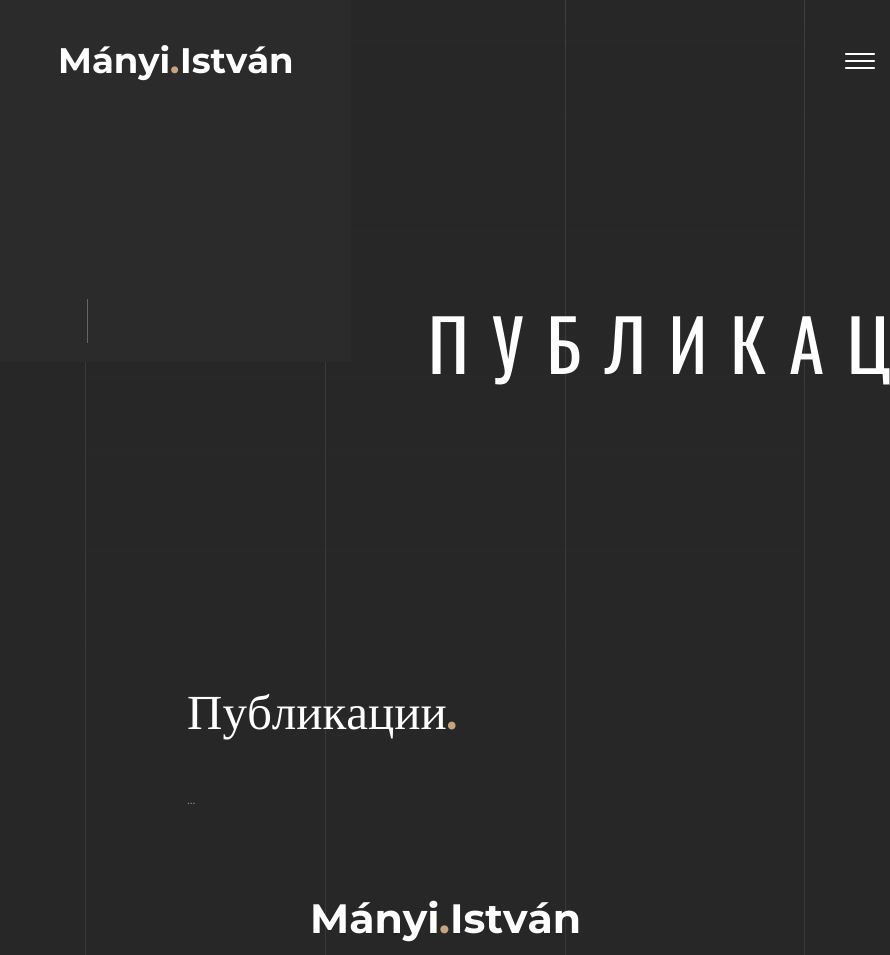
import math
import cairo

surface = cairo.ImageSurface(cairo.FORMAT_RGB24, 890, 955)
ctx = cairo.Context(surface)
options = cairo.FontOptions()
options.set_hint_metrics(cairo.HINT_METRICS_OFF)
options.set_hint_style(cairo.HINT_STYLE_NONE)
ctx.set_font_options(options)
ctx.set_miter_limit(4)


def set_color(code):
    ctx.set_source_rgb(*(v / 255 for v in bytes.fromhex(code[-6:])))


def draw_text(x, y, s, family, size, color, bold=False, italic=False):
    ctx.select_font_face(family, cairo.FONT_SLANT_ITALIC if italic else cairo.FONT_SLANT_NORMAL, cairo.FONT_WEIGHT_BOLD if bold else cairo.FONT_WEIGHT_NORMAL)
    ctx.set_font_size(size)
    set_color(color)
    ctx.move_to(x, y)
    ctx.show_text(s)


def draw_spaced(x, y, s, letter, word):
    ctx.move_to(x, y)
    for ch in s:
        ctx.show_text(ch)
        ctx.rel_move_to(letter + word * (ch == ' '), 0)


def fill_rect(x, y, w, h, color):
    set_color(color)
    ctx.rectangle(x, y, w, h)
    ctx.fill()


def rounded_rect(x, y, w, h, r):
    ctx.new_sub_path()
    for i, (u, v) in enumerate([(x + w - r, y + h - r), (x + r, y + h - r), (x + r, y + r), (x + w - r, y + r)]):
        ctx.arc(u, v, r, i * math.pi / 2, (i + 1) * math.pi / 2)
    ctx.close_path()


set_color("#272727")
ctx.paint()
fill_rect(85, 362, 1, 593, "#383838")
fill_rect(325, 362, 1, 593, "#383838")
fill_rect(565, 0, 1, 955, "#383838")
fill_rect(804, 0, 1, 955, "#383838")
gradient = cairo.LinearGradient(445, 685, 445, 0)
gradient.add_color_stop_rgba(0, 0.153, 0.153, 0.153, 1)
gradient.add_color_stop_rgba(0.26, 0.153, 0.153, 0.153, 0.95)
gradient.add_color_stop_rgba(1, 0.153, 0.153, 0.153, 0.6)
ctx.set_source(gradient)
ctx.rectangle(85, 0, 720, 685)
ctx.fill()
fill_rect(0, 0, 351, 362, "#2b2b2b")
draw_text(58, 73, "Mányi", "Montserrat", 35.5, "#ffffff", bold=True)
draw_text(170, 73, ".", "Montserrat", 35.5, "#c5a47e", bold=True)
draw_text(180, 73, "István", "Montserrat", 35.5, "#ffffff", bold=True)
rounded_rect(845, 53, 30, 2, 1)
ctx.fill()
rounded_rect(845, 60, 30, 2, 1)
ctx.fill()
rounded_rect(845, 67, 30, 2, 1)
ctx.fill()
fill_rect(87, 299, 1, 44, "#646464")
ctx.set_source_rgba(1, 1, 1, 0.08)
ctx.rectangle(85, 362, 1, 323)
ctx.fill()
ctx.rectangle(325, 362, 1, 323)
ctx.fill()
ctx.rectangle(565, 0, 1, 685)
ctx.fill()
ctx.rectangle(804, 0, 1, 685)
ctx.fill()
ctx.select_font_face("Oswald")
ctx.set_font_size(71.25)
set_color("#ffffff")
draw_spaced(428, 374, "ПУБЛИКАЦ", 22.75, 0)
draw_text(187, 729, "Публикации", "Liberation Serif", 49, "#ffffff")
draw_text(446, 729, ".", "Montserrat SemiBold", 49, "#c5a47e")
draw_text(187, 804, "...", "Montserrat Light", 14, "#939393")
draw_text(310, 933, "Mányi", "Montserrat", 41, "#ffffff", bold=True)
draw_text(439, 933, ".", "Montserrat", 41, "#c5a47e", bold=True)
draw_text(450, 933, "István", "Montserrat", 41, "#ffffff", bold=True)
surface.write_to_png("output.png")
